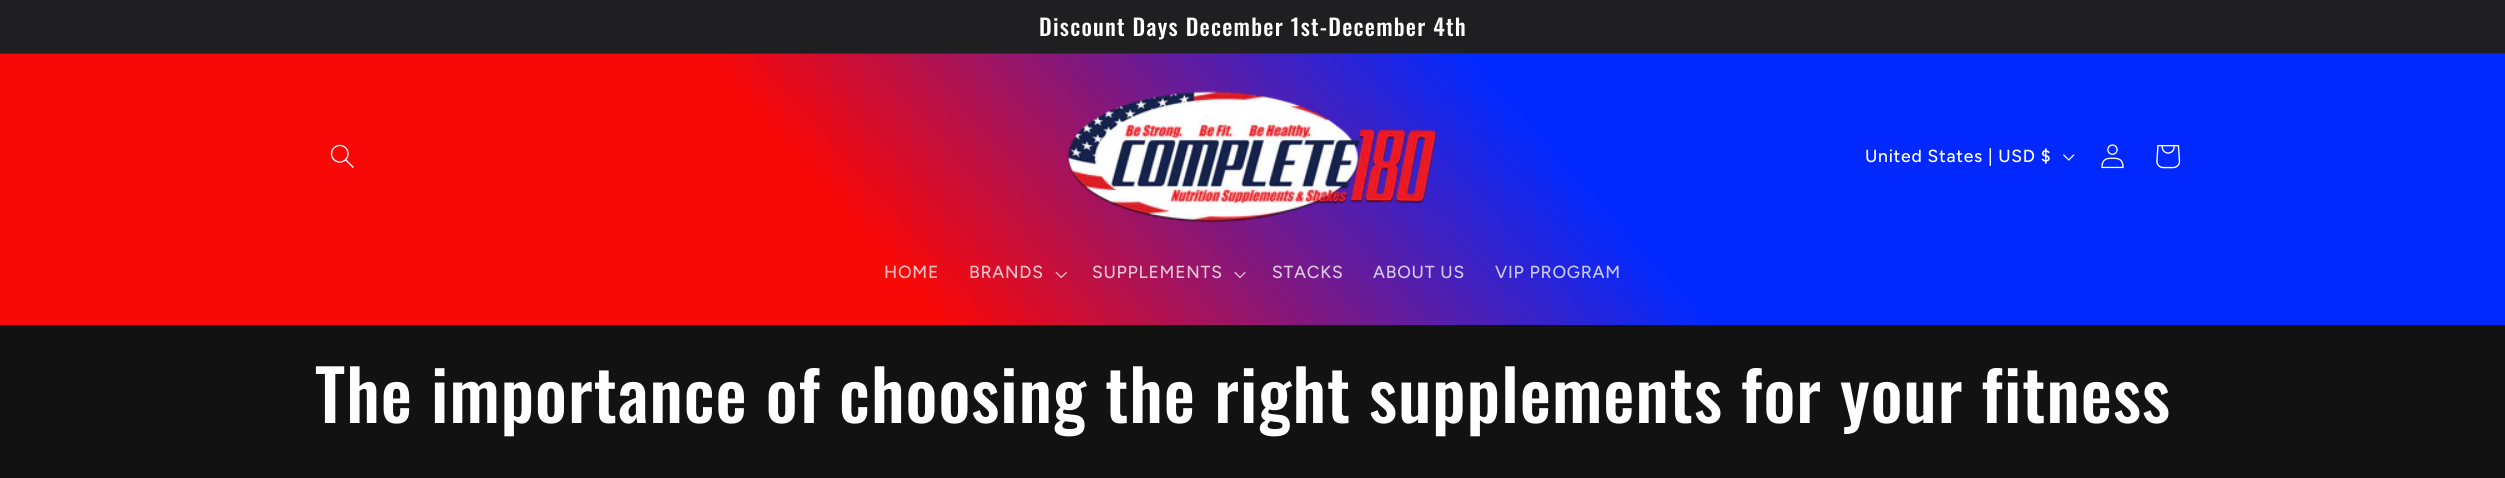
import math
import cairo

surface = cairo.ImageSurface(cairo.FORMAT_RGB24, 2505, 478)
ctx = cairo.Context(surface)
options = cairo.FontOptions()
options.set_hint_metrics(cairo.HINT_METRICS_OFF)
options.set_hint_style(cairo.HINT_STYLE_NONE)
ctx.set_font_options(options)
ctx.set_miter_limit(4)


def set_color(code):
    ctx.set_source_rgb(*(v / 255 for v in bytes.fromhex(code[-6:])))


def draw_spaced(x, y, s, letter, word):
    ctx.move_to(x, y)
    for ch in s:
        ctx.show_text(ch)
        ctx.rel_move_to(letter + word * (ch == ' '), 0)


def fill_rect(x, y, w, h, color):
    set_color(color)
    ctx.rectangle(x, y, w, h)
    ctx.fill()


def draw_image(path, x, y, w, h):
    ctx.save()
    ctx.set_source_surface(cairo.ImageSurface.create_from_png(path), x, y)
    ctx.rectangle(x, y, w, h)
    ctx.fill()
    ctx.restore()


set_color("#121212")
ctx.paint()
fill_rect(0, 0, 2505, 53, "#1f1f21")
fill_rect(0, 53, 2505, 1, "#313133")
ctx.select_font_face("Oswald Medium")
ctx.set_font_size(22.75)
set_color("#ffffff")
draw_spaced(1039, 36, "Discount Days December 1st-December 4th", 1.25, 0)
gradient = cairo.LinearGradient(2063, -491, 442, 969)
gradient.add_color_stop_rgba(0.37, 0.004, 0.161, 1, 1)
gradient.add_color_stop_rgba(0.63, 0.976, 0.031, 0.031, 1)
ctx.set_source(gradient)
ctx.rectangle(0, 54, 2505, 271)
ctx.fill()
draw_image("assets/img1.png", 330, 144, 24, 24)
draw_image("assets/img2.png", 1067, 91, 370, 132)
ctx.select_font_face("Figtree Medium")
ctx.set_font_size(17.5)
set_color("#ffffff")
draw_spaced(1865, 162, "United States | USD $", 0.75, 0)
draw_image("assets/img3.png", 2063, 154, 12, 7)
draw_image("assets/img4.png", 2101, 144, 23, 25)
draw_image("assets/img5.png", 2156, 145, 25, 24)
set_color("#fcc1c2")
draw_spaced(884, 278, "HOME", 0.75, 0)
set_color("#f5c2ca")
draw_spaced(969, 278, "BRANDS", 0.75, 0)
draw_image("assets/img6.png", 1055, 271, 12, 8)
set_color("#e9c4d6")
draw_spaced(1092, 278, "SUPPLEMENTS", 0.75, 0)
draw_image("assets/img7.png", 1234, 272, 12, 6)
set_color("#dcc6e2")
draw_spaced(1272, 278, "STACKS", 0.75, 0)
set_color("#d3c7eb")
draw_spaced(1373, 278, "ABOUT US", 0.75, 0)
set_color("#c8c8f7")
draw_spaced(1495, 278, "VIP PROGRAM", 0.75, 0)
ctx.select_font_face("Oswald Medium")
ctx.set_font_size(70)
set_color("#ffffff")
draw_spaced(315, 423, "The importance of choosing the right supplements for your fitness", 1.05, 0)
surface.write_to_png("output.png")
